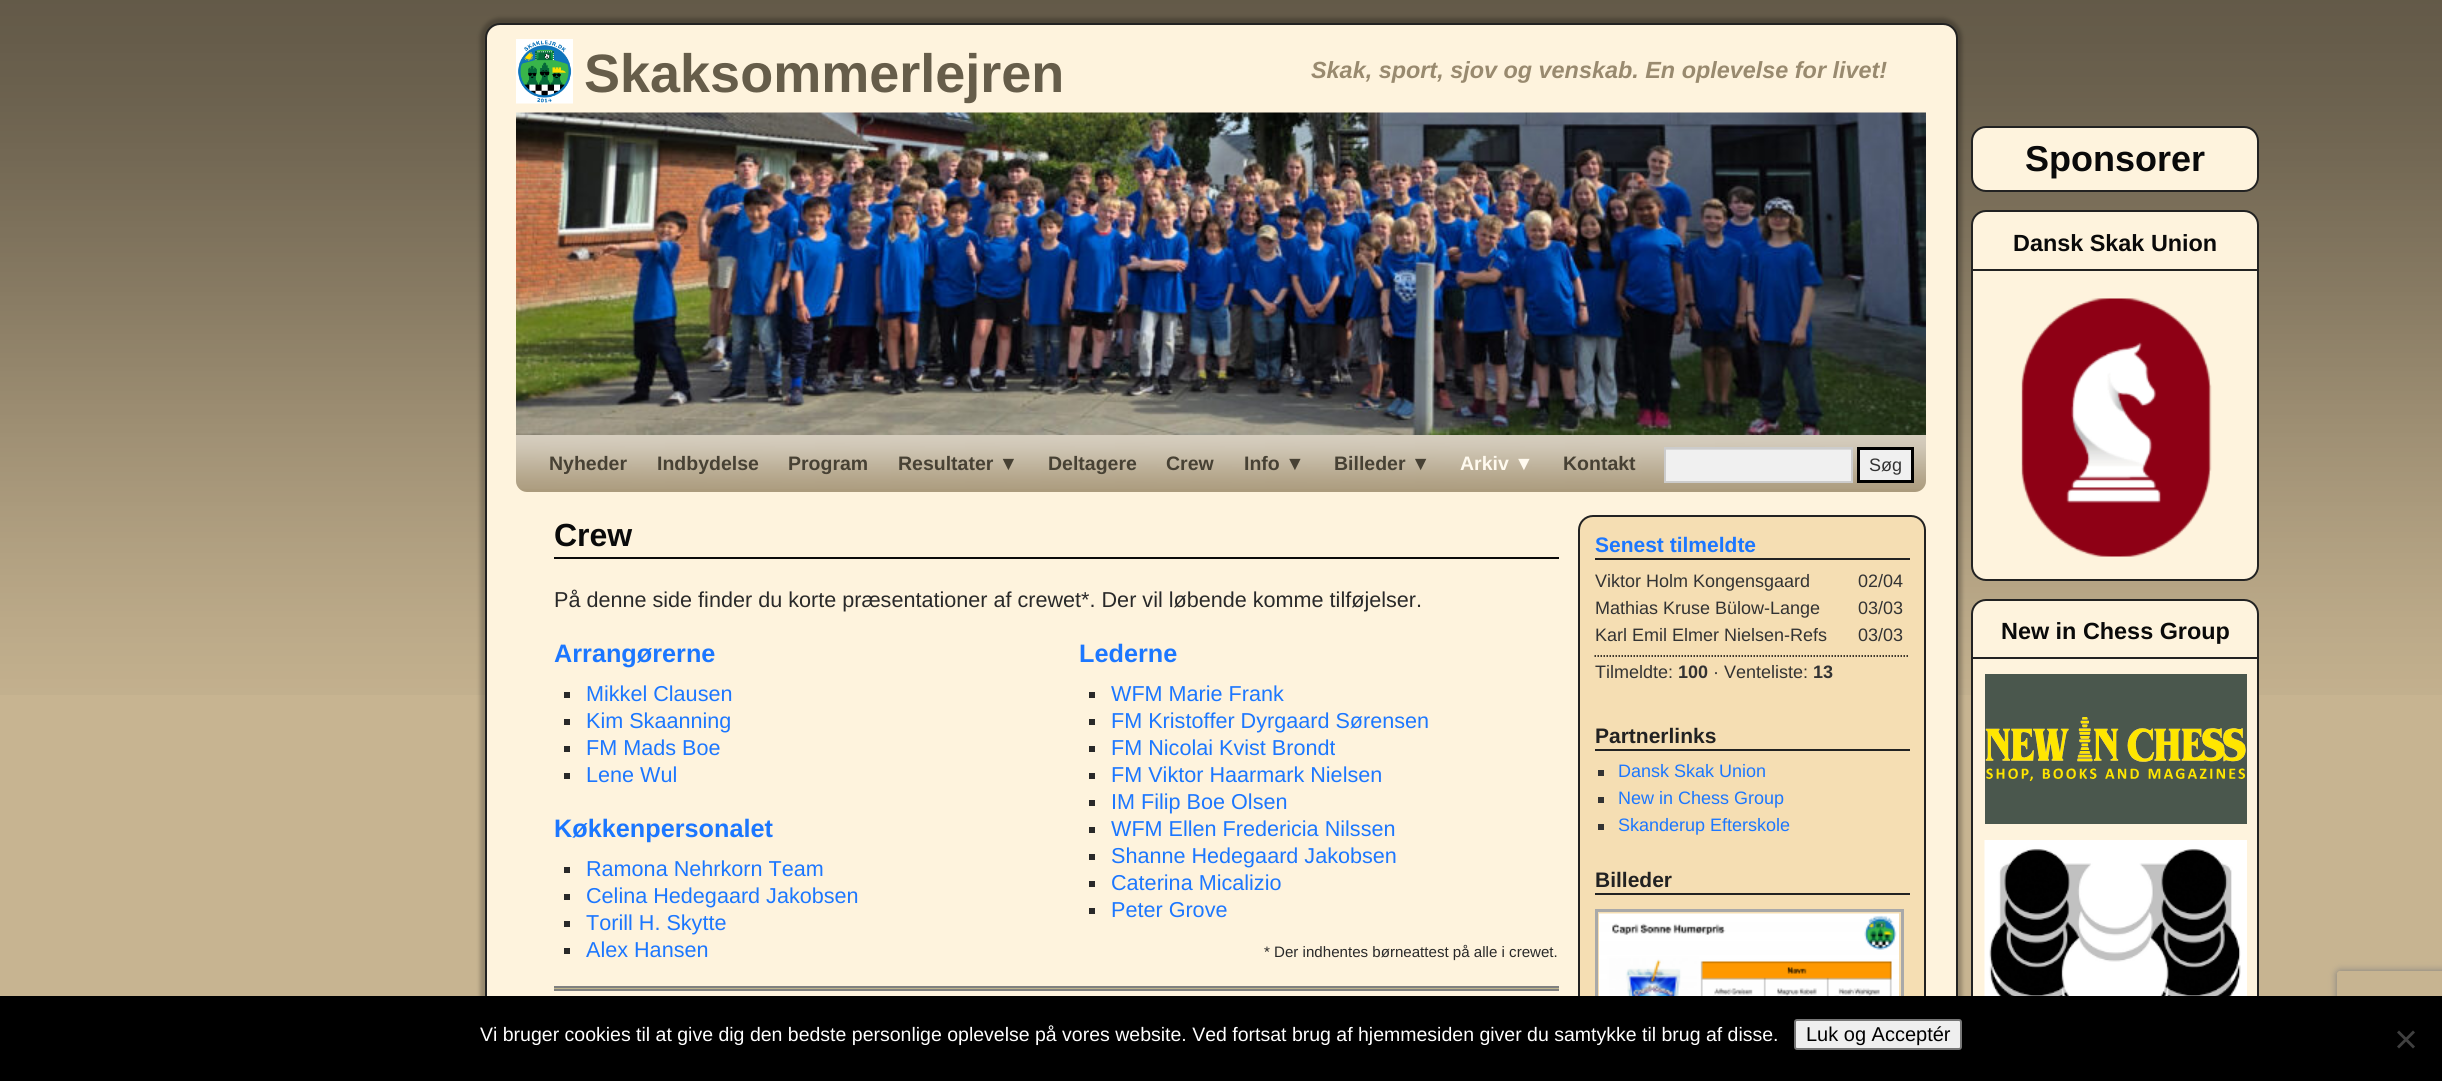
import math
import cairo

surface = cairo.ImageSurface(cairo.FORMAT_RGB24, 2442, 1081)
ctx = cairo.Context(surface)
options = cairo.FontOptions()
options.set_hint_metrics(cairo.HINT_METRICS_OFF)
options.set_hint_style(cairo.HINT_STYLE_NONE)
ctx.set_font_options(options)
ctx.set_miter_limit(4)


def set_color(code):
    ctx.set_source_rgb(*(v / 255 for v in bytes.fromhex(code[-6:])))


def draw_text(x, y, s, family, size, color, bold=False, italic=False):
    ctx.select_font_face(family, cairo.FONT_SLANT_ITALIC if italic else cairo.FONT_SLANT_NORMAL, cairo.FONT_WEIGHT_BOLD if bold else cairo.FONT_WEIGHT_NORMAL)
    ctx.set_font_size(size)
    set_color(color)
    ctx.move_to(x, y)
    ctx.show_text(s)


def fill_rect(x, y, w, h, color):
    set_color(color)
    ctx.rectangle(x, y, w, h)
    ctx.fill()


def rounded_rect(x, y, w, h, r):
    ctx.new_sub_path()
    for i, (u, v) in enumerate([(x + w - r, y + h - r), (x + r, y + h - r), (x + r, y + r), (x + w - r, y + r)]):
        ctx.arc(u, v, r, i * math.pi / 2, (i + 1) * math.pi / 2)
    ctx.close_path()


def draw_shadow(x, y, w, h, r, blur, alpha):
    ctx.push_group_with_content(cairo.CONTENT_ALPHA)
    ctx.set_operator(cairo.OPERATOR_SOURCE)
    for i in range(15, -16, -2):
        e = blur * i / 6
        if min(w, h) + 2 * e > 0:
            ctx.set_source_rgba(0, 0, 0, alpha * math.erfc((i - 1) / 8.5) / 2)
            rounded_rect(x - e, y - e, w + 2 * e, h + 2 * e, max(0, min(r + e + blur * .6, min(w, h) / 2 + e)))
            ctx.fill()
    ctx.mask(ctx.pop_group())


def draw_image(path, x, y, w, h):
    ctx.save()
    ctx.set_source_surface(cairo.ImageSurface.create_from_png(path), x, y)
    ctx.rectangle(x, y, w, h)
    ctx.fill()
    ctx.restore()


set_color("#c7b491")
ctx.paint()
draw_image("assets/img1.png", 0, 0, 2442, 695)
set_color("#000000")
draw_shadow(480, 18, 1482, 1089, 20, 2, 0.25)
set_color("#fef3dd")
rounded_rect(486, 24, 1471, 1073, 14)
ctx.fill_preserve()
set_color("#222222")
ctx.stroke()
draw_image("assets/img2.png", 516, 39, 57, 65)
draw_text(584, 92, "Skaksommerlejren", "Liberation Sans", 54, "#665d4a", bold=True)
draw_text(1311, 78, "Skak, sport, sjov og venskab. En oplevelse for livet!", "Liberation Sans", 23.4, "#998a6f", bold=True, italic=True)
draw_image("assets/img3.png", 516, 112, 1410, 323)
set_color("#ab9b7d")
ctx.new_path()
ctx.move_to(516, 435)
ctx.line_to(1926, 435)
ctx.line_to(1926, 481)
ctx.curve_to(1926, 487, 1921, 492, 1915, 492)
ctx.line_to(527, 492)
ctx.curve_to(521, 492, 516, 487, 516, 481)
ctx.close_path()
ctx.fill()
draw_image("assets/img4.png", 516, 435, 1410, 54)
draw_text(549, 470, "Nyheder", "Liberation Sans", 19.5, "#474134", bold=True)
draw_text(657, 470, "Indbydelse", "Liberation Sans", 19.5, "#474134", bold=True)
draw_text(788, 470, "Program", "Liberation Sans", 19.5, "#474134", bold=True)
draw_text(898, 470, "Resultater ▼", "Liberation Sans", 19.5, "#474134", bold=True)
draw_text(1048, 470, "Deltagere", "Liberation Sans", 19.5, "#474134", bold=True)
draw_text(1166, 470, "Crew", "Liberation Sans", 19.5, "#474134", bold=True)
draw_text(1244, 470, "Info ▼", "Liberation Sans", 19.5, "#474134", bold=True)
draw_text(1334, 470, "Billeder ▼", "Liberation Sans", 19.5, "#474134", bold=True)
draw_text(1460, 470, "Arkiv ▼", "Liberation Sans", 19.5, "#fffaef", bold=True)
draw_text(1563, 470, "Kontakt", "Liberation Sans", 19.5, "#474134", bold=True)
fill_rect(1666, 450, 185, 31, "#f0f0f0")
ctx.save()
ctx.rectangle(1665, 449, 186, 33)
ctx.clip()
set_color("#d8d8d8")
ctx.set_fill_rule(cairo.FILL_RULE_EVEN_ODD)
ctx.new_path()
ctx.move_to(1516, 300)
ctx.line_to(2000, 300)
ctx.line_to(2000, 630)
ctx.line_to(1516, 630)
ctx.close_path()
ctx.move_to(1666, 450)
ctx.line_to(1852, 450)
ctx.line_to(1852, 483)
ctx.line_to(1666, 483)
ctx.close_path()
ctx.fill()
ctx.restore()
ctx.rectangle(1665, 448, 187, 34)
set_color("#cccccc")
ctx.stroke()
set_color("#f0f0f0")
ctx.rectangle(1858.5, 448.5, 54, 33)
ctx.fill_preserve()
set_color("#000000")
ctx.set_line_width(3)
ctx.stroke()
draw_text(1869, 471, "Søg", "Liberation Sans", 18, "#333333")
fill_rect(554, 557, 1005, 2, "#0a0a0a")
draw_text(554, 546, "Crew", "Liberation Sans", 32, "#0a0a0a", bold=True)
draw_text(554, 607, "På denne side finder du korte præsentationer af crewet*. Der vil løbende komme tilføjelser.", "Liberation Sans", 21.6, "#292929")
draw_text(554, 662, "Arrangørerne", "Liberation Sans", 25.25, "#1c77ff", bold=True)
fill_rect(564, 692, 6, 6, "#292929")
draw_text(586, 701, "Mikkel Clausen", "Liberation Sans", 21.6, "#1c77ff")
fill_rect(564, 719, 6, 6, "#292929")
draw_text(586, 728, "Kim Skaanning", "Liberation Sans", 21.6, "#1c77ff")
fill_rect(564, 746, 6, 6, "#292929")
draw_text(586, 755, "FM Mads Boe", "Liberation Sans", 21.6, "#1c77ff")
fill_rect(564, 773, 6, 6, "#292929")
draw_text(586, 782, "Lene Wul", "Liberation Sans", 21.6, "#1c77ff")
draw_text(554, 837, "Køkkenpersonalet", "Liberation Sans", 25.25, "#1c77ff", bold=True)
fill_rect(564, 867, 6, 6, "#292929")
draw_text(586, 876, "Ramona Nehrkorn Team", "Liberation Sans", 21.6, "#1c77ff")
fill_rect(564, 894, 6, 6, "#292929")
draw_text(586, 903, "Celina Hedegaard Jakobsen", "Liberation Sans", 21.6, "#1c77ff")
fill_rect(564, 921, 6, 6, "#292929")
draw_text(586, 930, "Torill H. Skytte", "Liberation Sans", 21.6, "#1c77ff")
fill_rect(564, 948, 6, 6, "#292929")
draw_text(586, 957, "Alex Hansen", "Liberation Sans", 21.6, "#1c77ff")
draw_text(1079, 662, "Lederne", "Liberation Sans", 25.25, "#1c77ff", bold=True)
fill_rect(1089, 692, 6, 6, "#292929")
draw_text(1111, 701, "WFM Marie Frank", "Liberation Sans", 21.6, "#1c77ff")
fill_rect(1089, 719, 6, 6, "#292929")
draw_text(1111, 728, "FM Kristoffer Dyrgaard Sørensen", "Liberation Sans", 21.6, "#1c77ff")
fill_rect(1089, 746, 6, 6, "#292929")
draw_text(1111, 755, "FM Nicolai Kvist Brondt", "Liberation Sans", 21.6, "#1c77ff")
fill_rect(1089, 773, 6, 6, "#292929")
draw_text(1111, 782, "FM Viktor Haarmark Nielsen", "Liberation Sans", 21.6, "#1c77ff")
fill_rect(1089, 800, 6, 6, "#292929")
draw_text(1111, 809, "IM Filip Boe Olsen", "Liberation Sans", 21.6, "#1c77ff")
fill_rect(1089, 827, 6, 6, "#292929")
draw_text(1111, 836, "WFM Ellen Fredericia Nilssen", "Liberation Sans", 21.6, "#1c77ff")
fill_rect(1089, 854, 6, 6, "#292929")
draw_text(1111, 863, "Shanne Hedegaard Jakobsen", "Liberation Sans", 21.6, "#1c77ff")
fill_rect(1089, 881, 6, 6, "#292929")
draw_text(1111, 890, "Caterina Micalizio", "Liberation Sans", 21.6, "#1c77ff")
fill_rect(1089, 908, 6, 6, "#292929")
draw_text(1111, 917, "Peter Grove", "Liberation Sans", 21.6, "#1c77ff")
draw_text(1264, 957, "* Der indhentes børneattest på alle i crewet.", "Liberation Sans", 15.1, "#292929")
fill_rect(554, 988, 1005, 1, "#bfb58b")
fill_rect(554, 986, 1005, 2, "#808080")
fill_rect(554, 989, 1005, 2, "#808080")
set_color("#f5deb3")
rounded_rect(1579, 516, 346, 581, 14)
ctx.fill_preserve()
set_color("#222222")
ctx.set_line_width(2)
ctx.stroke()
fill_rect(1595, 558, 315, 2, "#222222")
draw_text(1595, 552, "Senest tilmeldte", "Liberation Sans", 21, "#1c77ff", bold=True)
draw_text(1595, 587, "Viktor Holm Kongensgaard", "Liberation Sans", 18, "#333333")
draw_text(1858, 587, "02/04", "Liberation Sans", 18, "#333333")
draw_text(1595, 614, "Mathias Kruse Bülow-Lange", "Liberation Sans", 18, "#333333")
draw_text(1858, 614, "03/03", "Liberation Sans", 18, "#333333")
draw_text(1595, 641, "Karl Emil Elmer Nielsen-Refs", "Liberation Sans", 18, "#333333")
draw_text(1858, 641, "03/03", "Liberation Sans", 18, "#333333")
ctx.new_path()
ctx.move_to(1594.5, 656)
ctx.line_to(1909.5, 656)
set_color("#000000")
ctx.set_line_width(1.5)
ctx.set_dash([1.5, 1.5])
ctx.stroke()
draw_text(1595, 678, "Tilmeldte:", "Liberation Sans", 18, "#333333")
draw_text(1678, 678, "100", "Liberation Sans", 18, "#333333", bold=True)
draw_text(1713, 678, "· Venteliste:", "Liberation Sans", 18, "#333333")
draw_text(1813, 678, "13", "Liberation Sans", 18, "#333333", bold=True)
fill_rect(1595, 749, 315, 2, "#222222")
draw_text(1595, 743, "Partnerlinks", "Liberation Sans", 21, "#222222", bold=True)
fill_rect(1598, 770, 6, 6, "#333333")
draw_text(1618, 777, "Dansk Skak Union", "Liberation Sans", 18, "#1c77ff")
fill_rect(1598, 797, 6, 6, "#333333")
draw_text(1618, 804, "New in Chess Group", "Liberation Sans", 18, "#1c77ff")
fill_rect(1598, 824, 6, 6, "#333333")
draw_text(1618, 831, "Skanderup Efterskole", "Liberation Sans", 18, "#1c77ff")
fill_rect(1595, 893, 315, 2, "#222222")
draw_text(1595, 887, "Billeder", "Liberation Sans", 21, "#222222", bold=True)
ctx.rectangle(1596.5, 910.5, 306, 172)
set_color("#a9a9a9")
ctx.set_line_width(3)
ctx.set_dash([])
ctx.stroke()
draw_image("assets/img5.png", 1599, 913, 300, 83)
set_color("#fef3dd")
rounded_rect(1972, 127, 286, 64, 14)
ctx.fill_preserve()
set_color("#222222")
ctx.set_line_width(2)
ctx.stroke()
draw_text(2025, 171, "Sponsorer", "Liberation Sans", 36, "#0a0a0a", bold=True)
set_color("#fef3dd")
rounded_rect(1972, 211, 286, 369, 14)
ctx.fill_preserve()
set_color("#222222")
ctx.stroke()
fill_rect(1973, 269, 285, 2, "#222222")
draw_text(2013, 251, "Dansk Skak Union", "Liberation Sans", 23.4, "#0a0a0a", bold=True)
draw_image("assets/img6.png", 2021, 298, 191, 259)
set_color("#fef3dd")
rounded_rect(1972, 600, 286, 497, 14)
ctx.fill_preserve()
set_color("#222222")
ctx.stroke()
fill_rect(1973, 657, 285, 2, "#222222")
draw_text(2001, 639, "New in Chess Group", "Liberation Sans", 23.4, "#0a0a0a", bold=True)
fill_rect(1985, 674, 262, 150, "#4a574d")
draw_image("assets/img7.png", 1985, 717, 261, 64)
draw_image("assets/img8.png", 1984, 840, 263, 156)
ctx.save()
ctx.set_fill_rule(cairo.FILL_RULE_EVEN_ODD)
ctx.new_path()
ctx.move_to(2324, 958)
ctx.line_to(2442, 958)
ctx.line_to(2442, 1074)
ctx.line_to(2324, 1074)
ctx.close_path()
ctx.move_to(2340, 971)
ctx.line_to(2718, 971)
ctx.curve_to(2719.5, 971, 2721, 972.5, 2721, 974)
ctx.line_to(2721, 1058)
ctx.curve_to(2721, 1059.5, 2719.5, 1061, 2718, 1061)
ctx.line_to(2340, 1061)
ctx.curve_to(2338.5, 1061, 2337, 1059.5, 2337, 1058)
ctx.line_to(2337, 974)
ctx.curve_to(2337, 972.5, 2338.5, 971, 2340, 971)
ctx.close_path()
ctx.clip()
set_color("#808080")
draw_shadow(2337, 971, 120, 90, 3, 4, 1)
ctx.restore()
fill_rect(0, 996, 2442, 85, "#000000")
draw_text(480, 1041, "Vi bruger cookies til at give dig den bedste personlige oplevelse på vores website. Ved fortsat brug af hjemmesiden giver du samtykke til brug af disse.", "Liberation Sans", 19.5, "#ffffff")
set_color("#efefef")
rounded_rect(1795, 1020, 166, 29, 2)
ctx.fill_preserve()
set_color("#767676")
ctx.stroke()
draw_text(1806, 1041, "Luk og Acceptér", "Liberation Sans", 20, "#000000")
set_color("#404040")
ctx.new_path()
ctx.move_to(2413, 1030.5)
ctx.line_to(2415, 1032.5)
ctx.line_to(2399, 1048.5)
ctx.line_to(2397, 1046.5)
ctx.close_path()
ctx.fill()
ctx.new_path()
ctx.move_to(2397, 1032.5)
ctx.line_to(2399, 1030.5)
ctx.line_to(2415, 1046.5)
ctx.line_to(2413, 1048.5)
ctx.close_path()
ctx.fill()
surface.write_to_png("output.png")
